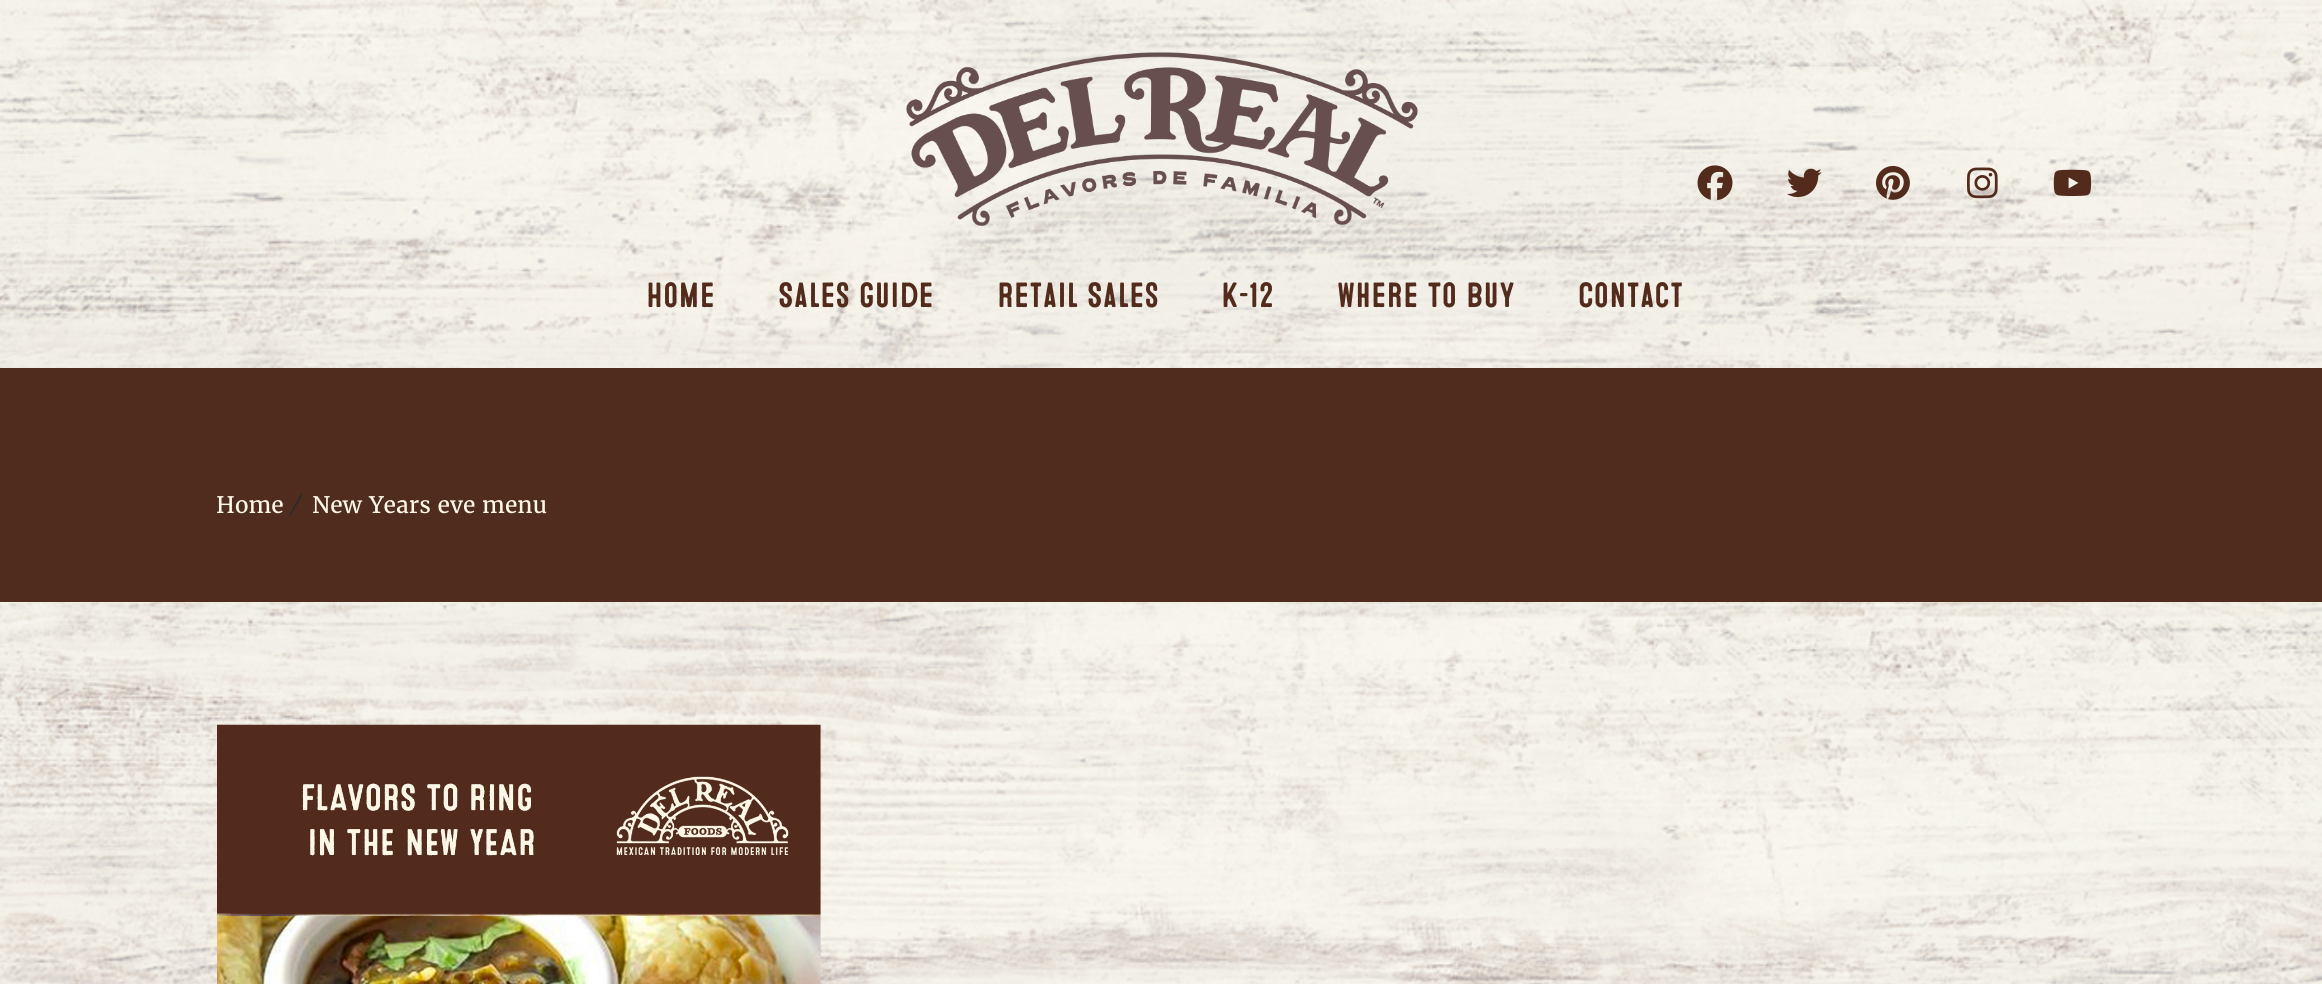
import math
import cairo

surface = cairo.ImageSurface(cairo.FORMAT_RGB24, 2322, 984)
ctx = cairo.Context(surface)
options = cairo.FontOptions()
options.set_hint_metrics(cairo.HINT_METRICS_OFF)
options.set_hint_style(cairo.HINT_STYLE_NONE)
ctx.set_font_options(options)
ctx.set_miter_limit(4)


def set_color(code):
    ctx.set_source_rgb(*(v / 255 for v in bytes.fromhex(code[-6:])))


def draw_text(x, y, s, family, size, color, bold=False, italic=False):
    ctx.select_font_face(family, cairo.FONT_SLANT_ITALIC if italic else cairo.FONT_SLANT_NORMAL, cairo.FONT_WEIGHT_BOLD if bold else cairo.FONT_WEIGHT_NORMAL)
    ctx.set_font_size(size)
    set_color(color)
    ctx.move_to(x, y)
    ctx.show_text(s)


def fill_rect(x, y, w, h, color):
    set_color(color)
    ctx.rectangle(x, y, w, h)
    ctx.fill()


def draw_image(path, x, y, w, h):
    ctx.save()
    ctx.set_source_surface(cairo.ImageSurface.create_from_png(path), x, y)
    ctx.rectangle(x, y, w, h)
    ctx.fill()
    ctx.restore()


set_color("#ffffff")
ctx.paint()
draw_image("assets/img1.png", 0, 0, 2322, 984)
draw_image("assets/img2.png", 906, 52, 512, 174)
draw_image("assets/img3.png", 1697, 165, 36, 36)
draw_image("assets/img4.png", 1787, 168, 35, 30)
draw_image("assets/img5.png", 1876, 165, 34, 35)
draw_image("assets/img6.png", 1967, 167, 31, 32)
draw_image("assets/img7.png", 2053, 169, 39, 27)
draw_text(646, 307, "Home", "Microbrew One", 35, "#522b1c")
draw_text(778, 307, "Sales Guide", "Microbrew One", 35, "#522b1c")
draw_text(997, 307, "Retail Sales", "Microbrew One", 35, "#522b1c")
draw_text(1221, 307, "K-12", "Microbrew One", 35, "#522b1c")
draw_text(1337, 307, "Where To Buy", "Microbrew One", 35, "#522b1c")
draw_text(1578, 307, "Contact", "Microbrew One", 35, "#522b1c")
fill_rect(0, 368, 2322, 234, "#4f2c1d")
draw_text(216, 513, "Home", "Merriweather", 22.75, "#fff7e7")
set_color("#2b2b2b")
ctx.new_path()
ctx.move_to(301, 494)
ctx.line_to(302.5, 495)
ctx.line_to(290.5, 516)
ctx.line_to(289, 515.5)
ctx.close_path()
ctx.fill()
draw_text(312, 513, "New Years eve menu", "Merriweather", 22.75, "#fff7e7")
draw_image("assets/img8.png", 217, 724, 604, 260)
surface.write_to_png("output.png")
